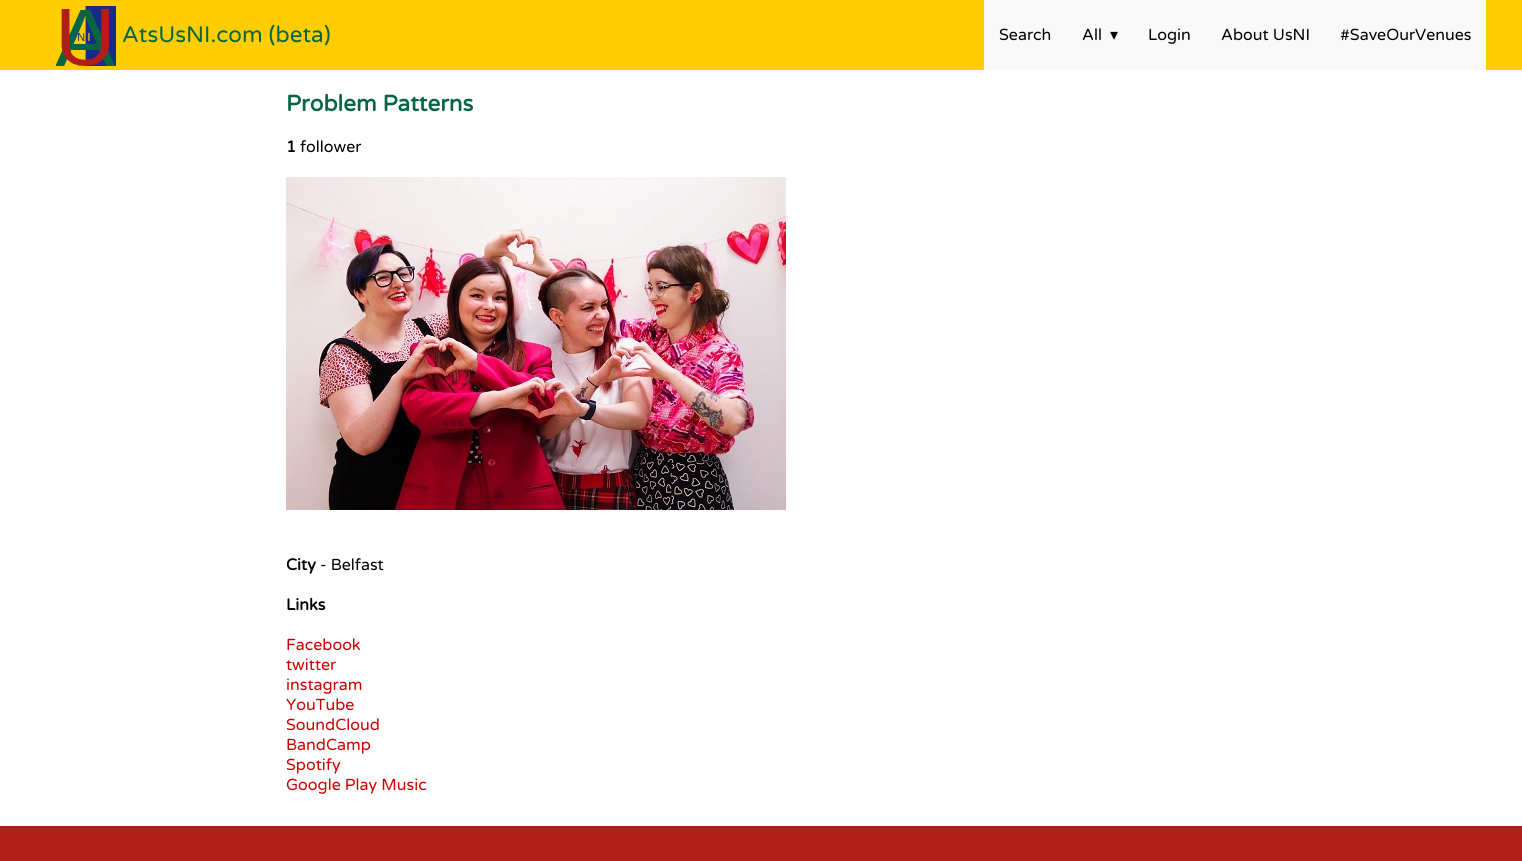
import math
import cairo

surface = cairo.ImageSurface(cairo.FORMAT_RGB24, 1522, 861)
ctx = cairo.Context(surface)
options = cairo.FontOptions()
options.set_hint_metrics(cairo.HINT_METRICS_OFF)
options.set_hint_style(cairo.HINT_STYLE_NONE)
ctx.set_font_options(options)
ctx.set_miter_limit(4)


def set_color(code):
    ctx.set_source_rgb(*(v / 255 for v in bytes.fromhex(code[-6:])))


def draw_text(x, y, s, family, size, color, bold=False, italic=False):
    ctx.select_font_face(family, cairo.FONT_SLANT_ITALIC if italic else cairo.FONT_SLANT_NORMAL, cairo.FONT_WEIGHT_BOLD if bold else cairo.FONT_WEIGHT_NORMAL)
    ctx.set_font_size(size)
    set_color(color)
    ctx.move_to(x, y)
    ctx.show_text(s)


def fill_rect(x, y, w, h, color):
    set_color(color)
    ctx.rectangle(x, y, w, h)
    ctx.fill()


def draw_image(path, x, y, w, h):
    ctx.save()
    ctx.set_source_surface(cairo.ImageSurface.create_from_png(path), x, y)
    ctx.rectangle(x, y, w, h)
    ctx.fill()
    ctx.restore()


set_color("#ffffff")
ctx.paint()
fill_rect(0, 0, 1522, 70, "#ffcd01")
draw_image("assets/img1.png", 56, 6, 60, 60)
draw_text(122, 42, "AtsUsNI.com (beta)", "Varela Round", 22.5, "#076543")
fill_rect(984, 0, 502, 70, "#f9f9f9")
draw_text(999, 40, "Search", "Varela Round", 16, "#000000")
draw_text(1082, 40, "All", "Varela Round", 16, "#000000")
draw_text(1110, 40, "▾", "DejaVu Sans", 16, "#000000")
draw_text(1148, 40, "Login", "Varela Round", 16, "#000000")
draw_text(1221, 40, "About UsNI", "Varela Round", 16, "#000000")
draw_text(1340, 40, "#SaveOurVenues", "Varela Round", 16, "#000000")
draw_text(286, 111, "Problem Patterns", "Varela Round", 22.5, "#076543", bold=True)
draw_text(286, 152, "1", "Varela Round", 16, "#000000", bold=True)
draw_text(300, 152, "follower", "Varela Round", 16, "#000000")
draw_image("assets/img2.png", 286, 177, 500, 333)
draw_text(286, 570, "City", "Varela Round", 16, "#000000", bold=True)
draw_text(320, 570, "- Belfast", "Varela Round", 16, "#000000")
draw_text(286, 610, "Links", "Varela Round", 16, "#000000", bold=True)
draw_text(286, 650, "Facebook", "Varela Round", 16, "#cd0001")
draw_text(286, 670, "twitter", "Varela Round", 16, "#cd0001")
draw_text(286, 690, "instagram", "Varela Round", 16, "#cd0001")
draw_text(286, 710, "YouTube", "Varela Round", 16, "#cd0001")
draw_text(286, 730, "SoundCloud", "Varela Round", 16, "#cd0001")
draw_text(286, 750, "BandCamp", "Varela Round", 16, "#cd0001")
draw_text(286, 770, "Spotify", "Varela Round", 16, "#cd0001")
draw_text(286, 790, "Google Play Music", "Varela Round", 16, "#cd0001")
fill_rect(0, 826, 1522, 35, "#b11e1a")
surface.write_to_png("output.png")
